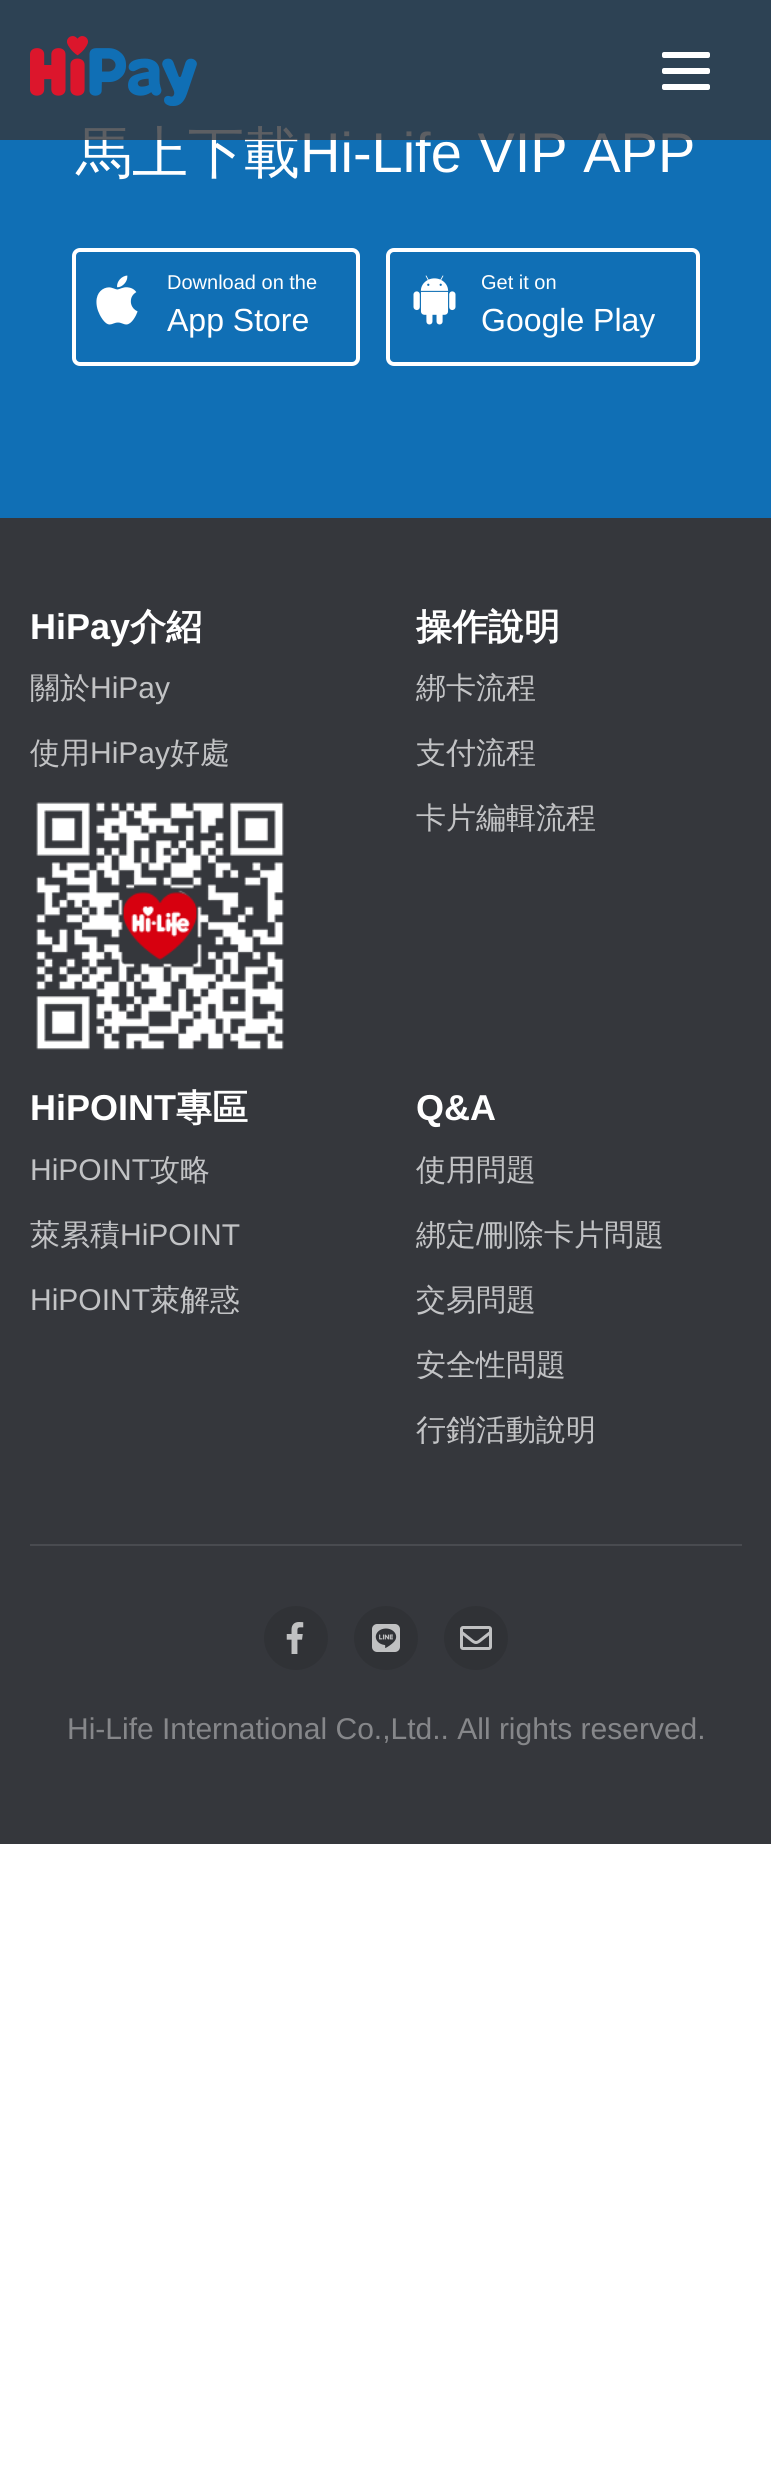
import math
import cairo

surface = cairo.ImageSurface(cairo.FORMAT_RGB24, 771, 2473)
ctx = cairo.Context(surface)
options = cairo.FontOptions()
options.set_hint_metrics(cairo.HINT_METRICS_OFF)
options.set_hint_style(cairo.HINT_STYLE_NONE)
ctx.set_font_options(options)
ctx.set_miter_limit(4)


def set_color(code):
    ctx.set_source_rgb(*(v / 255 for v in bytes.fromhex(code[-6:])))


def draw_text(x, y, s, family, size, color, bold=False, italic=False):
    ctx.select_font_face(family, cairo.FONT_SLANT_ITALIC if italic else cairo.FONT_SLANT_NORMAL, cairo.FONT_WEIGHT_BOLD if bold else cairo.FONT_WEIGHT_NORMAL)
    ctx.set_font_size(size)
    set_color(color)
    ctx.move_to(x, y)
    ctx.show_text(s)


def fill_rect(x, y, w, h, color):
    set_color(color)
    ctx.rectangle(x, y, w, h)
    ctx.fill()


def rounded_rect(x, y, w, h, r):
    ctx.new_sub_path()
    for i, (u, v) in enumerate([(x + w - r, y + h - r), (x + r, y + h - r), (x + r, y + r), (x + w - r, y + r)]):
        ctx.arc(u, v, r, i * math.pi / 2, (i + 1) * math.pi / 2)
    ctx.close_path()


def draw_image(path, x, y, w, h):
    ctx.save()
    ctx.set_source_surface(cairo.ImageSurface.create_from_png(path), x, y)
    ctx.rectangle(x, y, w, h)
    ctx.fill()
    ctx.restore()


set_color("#ffffff")
ctx.paint()
fill_rect(0, 0, 771, 518, "#106fb5")
draw_text(76, 172, "馬上下載", "WenQuanYi Zen Hei Medium", 56, "#ffffff")
draw_text(300, 172, "Hi-Life VIP APP", "Liberation Sans", 56, "#ffffff")
ctx.set_source_rgba(0.208, 0.216, 0.235, 0.8)
ctx.rectangle(0, 0, 771, 140)
ctx.fill()
draw_image("assets/img1.png", 30, 36, 167, 70)
set_color("#ffffff")
rounded_rect(662, 52, 48, 6, 2)
ctx.fill()
rounded_rect(662, 68, 48, 6, 2)
ctx.fill()
rounded_rect(662, 84, 48, 6, 2)
ctx.fill()
rounded_rect(74, 250, 284, 114, 6)
ctx.set_line_width(4)
ctx.stroke()
draw_image("assets/img2.png", 96, 275, 42, 50)
draw_text(167, 289, "Download on the", "Liberation Sans", 20, "#ffffff")
draw_text(167, 331, "App Store", "Liberation Sans", 32, "#ffffff")
rounded_rect(388, 250, 310, 114, 6)
ctx.stroke()
draw_image("assets/img3.png", 413, 275, 43, 50)
draw_text(481, 289, "Get it on", "Liberation Sans", 20, "#ffffff")
draw_text(481, 331, "Google Play", "Liberation Sans", 32, "#ffffff")
fill_rect(0, 518, 771, 1326, "#35373c")
draw_text(30, 639, "HiPay", "Liberation Sans", 36, "#ffffff", bold=True)
draw_text(130, 639, "介紹", "WenQuanYi Zen Hei", 36, "#ffffff", bold=True)
draw_text(30, 698, "關於", "WenQuanYi Zen Hei Medium", 30, "#c2c3c5")
draw_text(90, 698, "HiPay", "Liberation Sans", 30, "#c2c3c5")
draw_text(30, 763, "使用", "WenQuanYi Zen Hei Medium", 30, "#c2c3c5")
draw_text(90, 763, "HiPay", "Liberation Sans", 30, "#c2c3c5")
draw_text(170, 763, "好處", "WenQuanYi Zen Hei Medium", 30, "#c2c3c5")
draw_image("assets/img4.png", 36, 802, 248, 248)
draw_text(416, 639, "操作說明", "WenQuanYi Zen Hei", 36, "#ffffff", bold=True)
draw_text(416, 698, "綁卡流程", "WenQuanYi Zen Hei Medium", 30, "#c2c3c5")
draw_text(416, 763, "支付流程", "WenQuanYi Zen Hei Medium", 30, "#c2c3c5")
draw_text(416, 828, "卡片編輯流程", "WenQuanYi Zen Hei Medium", 30, "#c2c3c5")
draw_text(30, 1120, "HiPOINT", "Liberation Sans", 36, "#ffffff", bold=True)
draw_text(176, 1120, "專區", "WenQuanYi Zen Hei", 36, "#ffffff", bold=True)
draw_text(30, 1180, "HiPOINT", "Liberation Sans", 30, "#c2c3c5")
draw_text(150, 1180, "攻略", "WenQuanYi Zen Hei Medium", 30, "#c2c3c5")
draw_text(30, 1245, "萊累積", "WenQuanYi Zen Hei Medium", 30, "#c2c3c5")
draw_text(120, 1245, "HiPOINT", "Liberation Sans", 30, "#c2c3c5")
draw_text(30, 1310, "HiPOINT", "Liberation Sans", 30, "#c2c3c5")
draw_text(150, 1310, "萊解惑", "WenQuanYi Zen Hei Medium", 30, "#c2c3c5")
draw_text(416, 1120, "Q&A", "Liberation Sans", 36, "#ffffff", bold=True)
draw_text(416, 1180, "使用問題", "WenQuanYi Zen Hei Medium", 30, "#c2c3c5")
draw_text(416, 1245, "綁定", "WenQuanYi Zen Hei Medium", 30, "#c2c3c5")
draw_text(476, 1245, "/", "Liberation Sans", 30, "#c2c3c5")
draw_text(484, 1245, "刪除卡片問題", "WenQuanYi Zen Hei Medium", 30, "#c2c3c5")
draw_text(416, 1310, "交易問題", "WenQuanYi Zen Hei Medium", 30, "#c2c3c5")
draw_text(416, 1375, "安全性問題", "WenQuanYi Zen Hei Medium", 30, "#c2c3c5")
draw_text(416, 1440, "行銷活動說明", "WenQuanYi Zen Hei Medium", 30, "#c2c3c5")
fill_rect(30, 1544, 712, 2, "#494b50")
set_color("#303236")
ctx.new_path()
ctx.arc(296, 1638, 32, 0, 2 * math.pi)
ctx.fill()
draw_image("assets/img5.png", 286, 1622, 18, 32)
ctx.arc(386, 1638, 32, 0, 2 * math.pi)
ctx.fill()
draw_image("assets/img6.png", 372, 1624, 28, 28)
ctx.arc(476, 1638, 32, 0, 2 * math.pi)
ctx.fill()
draw_image("assets/img7.png", 460, 1626, 32, 24)
draw_text(67, 1739, "Hi-Life International Co.,Ltd.. All rights reserved.", "Liberation Sans", 30, "#86878a")
surface.write_to_png("output.png")
